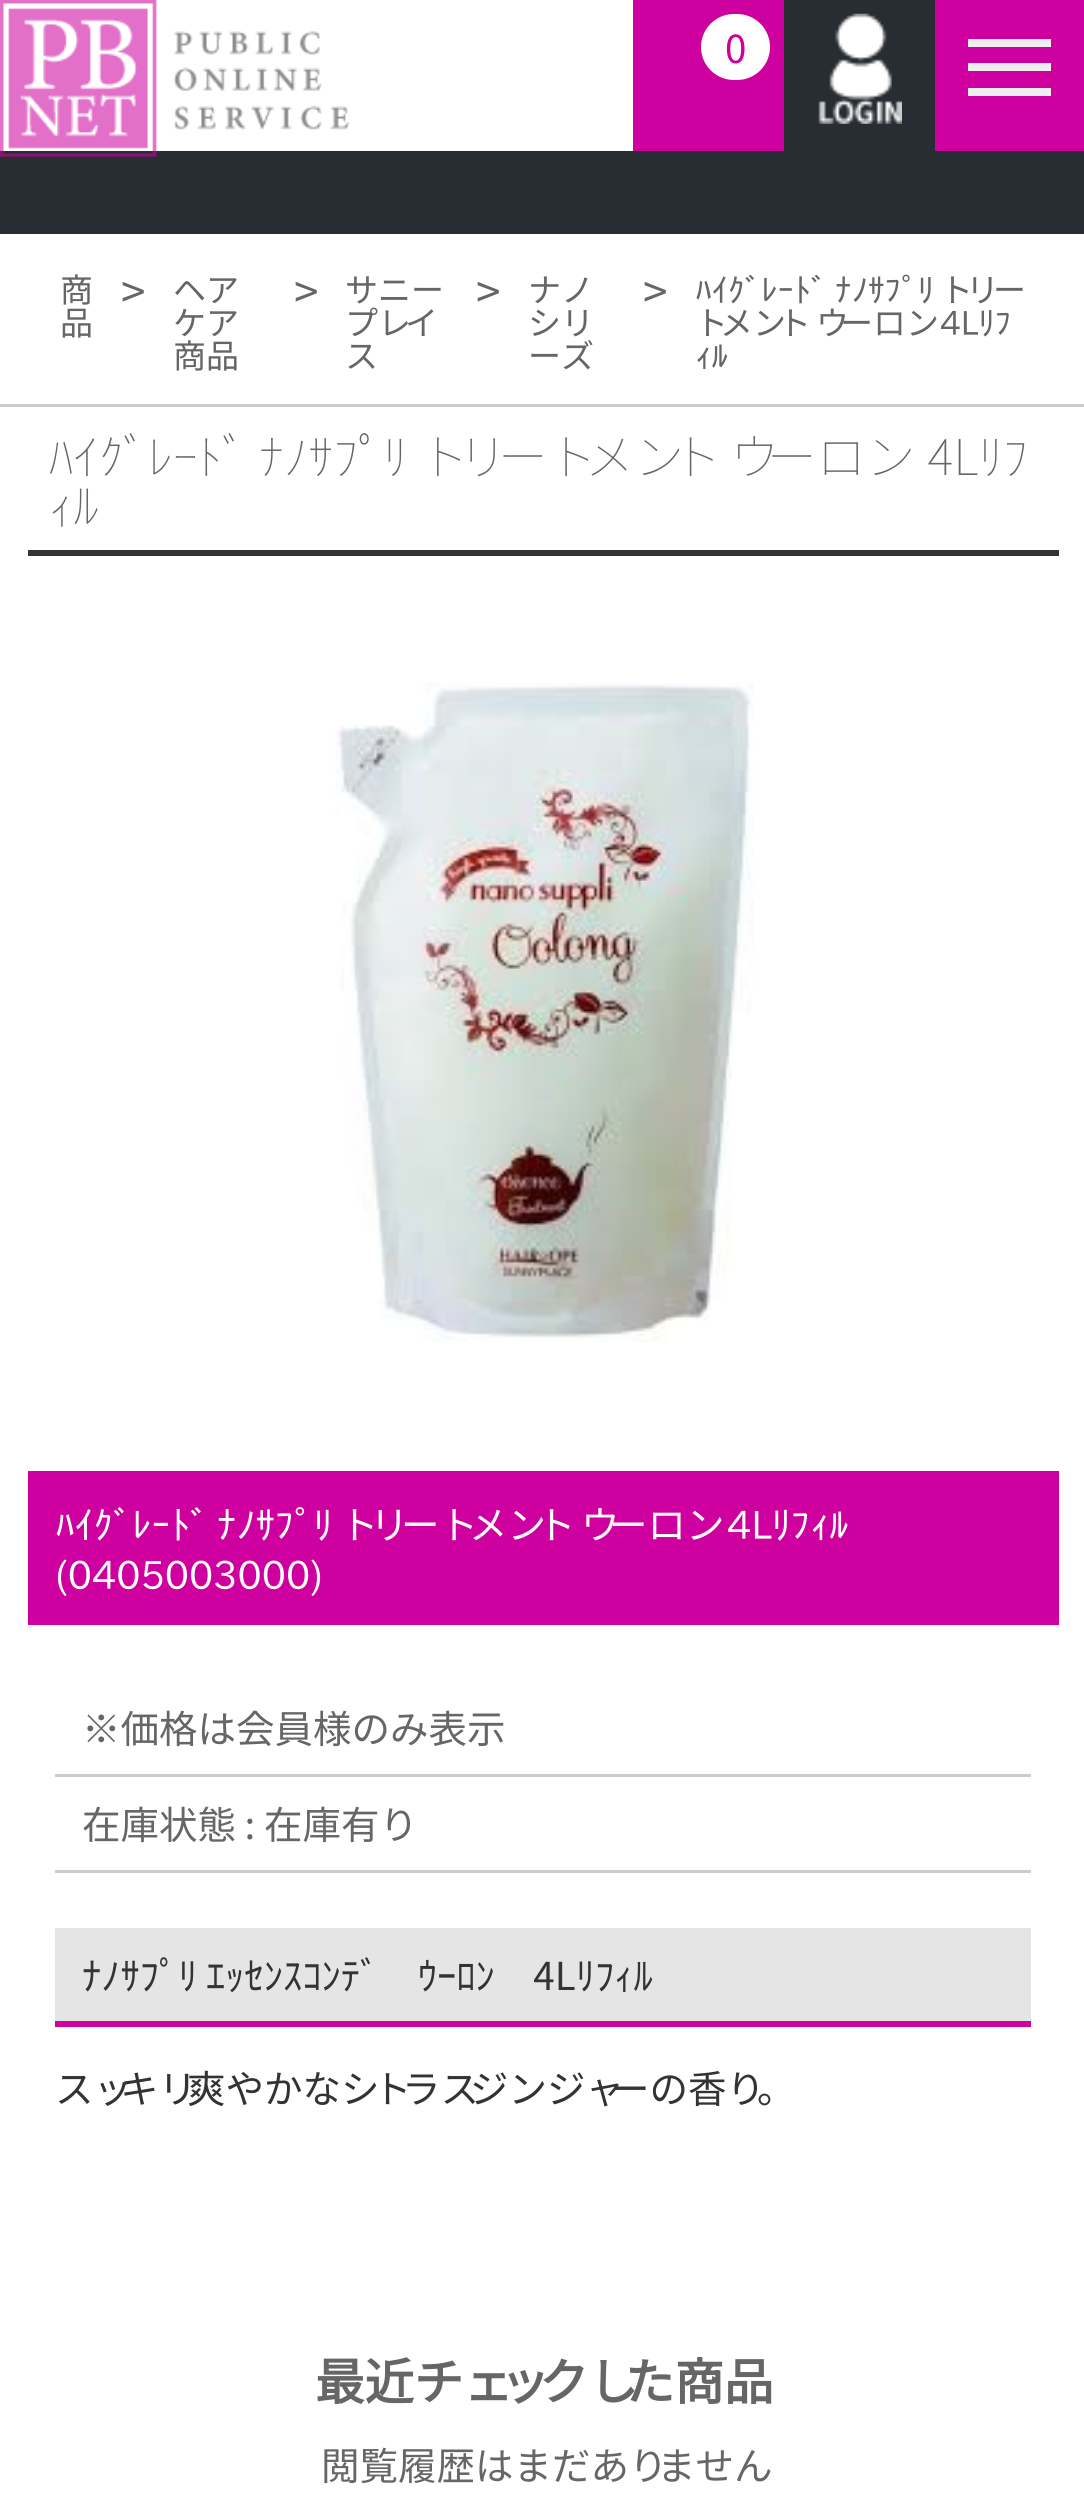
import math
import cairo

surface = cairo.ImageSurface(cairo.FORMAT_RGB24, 1084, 2504)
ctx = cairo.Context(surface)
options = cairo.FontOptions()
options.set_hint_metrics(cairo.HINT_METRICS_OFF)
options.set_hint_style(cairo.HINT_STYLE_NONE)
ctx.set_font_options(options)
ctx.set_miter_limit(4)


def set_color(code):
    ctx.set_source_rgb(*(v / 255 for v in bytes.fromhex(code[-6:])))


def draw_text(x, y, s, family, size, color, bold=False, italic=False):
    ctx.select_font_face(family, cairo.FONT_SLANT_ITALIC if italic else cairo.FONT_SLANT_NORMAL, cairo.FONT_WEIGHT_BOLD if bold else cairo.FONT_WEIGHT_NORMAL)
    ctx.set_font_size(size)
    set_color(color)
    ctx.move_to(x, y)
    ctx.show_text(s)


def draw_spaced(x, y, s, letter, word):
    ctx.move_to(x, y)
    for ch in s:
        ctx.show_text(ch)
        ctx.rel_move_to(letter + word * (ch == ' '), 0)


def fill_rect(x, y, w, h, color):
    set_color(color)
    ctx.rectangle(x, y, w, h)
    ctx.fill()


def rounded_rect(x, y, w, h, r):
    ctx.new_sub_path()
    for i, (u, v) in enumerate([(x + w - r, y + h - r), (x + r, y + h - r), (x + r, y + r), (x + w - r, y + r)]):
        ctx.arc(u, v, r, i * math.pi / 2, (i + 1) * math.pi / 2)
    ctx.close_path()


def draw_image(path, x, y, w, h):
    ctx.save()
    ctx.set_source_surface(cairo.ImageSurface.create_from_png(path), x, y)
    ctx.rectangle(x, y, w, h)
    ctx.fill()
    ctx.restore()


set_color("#ffffff")
ctx.paint()
fill_rect(0, 151, 1084, 83, "#282d33")
draw_image("assets/img1.png", 0, 0, 350, 157)
fill_rect(633, 0, 151, 151, "#ce009f")
set_color("#ffffff")
rounded_rect(701, 14, 69, 66, 33)
ctx.fill()
draw_text(725, 63, "0", "Noto Sans JP Thin", 38.5, "#ce009f")
fill_rect(784, 0, 151, 151, "#282d33")
draw_image("assets/img2.png", 818, 13, 84, 111)
fill_rect(935, 0, 149, 151, "#ce009f")
fill_rect(968, 39, 83, 8, "#eeeeee")
fill_rect(968, 63, 83, 8, "#eeeeee")
fill_rect(968, 88, 83, 8, "#eeeeee")
fill_rect(0, 404, 1084, 3, "#cccccc")
draw_text(60, 302, "商", "Noto Sans JP Thin", 33, "#666666")
draw_text(60, 335, "品", "Noto Sans JP Thin", 33, "#666666")
draw_text(121, 308, ">", "Noto Sans JP Thin", 44, "#666666")
draw_text(173, 302, "ヘア", "Noto Sans JP Thin", 33, "#666666")
draw_text(173, 335, "ケア", "Noto Sans JP Thin", 33, "#666666")
draw_text(173, 368, "商品", "Noto Sans JP Thin", 33, "#666666")
draw_text(294, 308, ">", "Noto Sans JP Thin", 44, "#666666")
draw_text(345, 302, "サニー", "Noto Sans JP Thin", 33, "#666666")
draw_text(345, 335, "プレ", "Noto Sans JP Thin", 33, "#666666")
draw_text(405, 335, "イ", "Noto Sans JP Thin", 33, "#666666")
draw_text(345, 368, "ス", "Noto Sans JP Thin", 33, "#666666")
draw_text(476, 308, ">", "Noto Sans JP Thin", 44, "#666666")
draw_text(528, 302, "ナノ", "Noto Sans JP Thin", 33, "#666666")
draw_text(528, 335, "シリ", "Noto Sans JP Thin", 33, "#666666")
draw_text(528, 368, "ーズ", "Noto Sans JP Thin", 33, "#666666")
draw_text(643, 308, ">", "Noto Sans JP Thin", 44, "#666666")
ctx.select_font_face("IPAPGothic")
ctx.set_font_size(33)
draw_spaced(695, 302, "ﾊｲｸﾞﾚｰﾄﾞ ﾅﾉｻﾌﾟﾘ", 0, -1)
draw_text(940, 302, "ト", "Noto Sans JP Thin", 33, "#666666")
draw_text(966, 302, "リ", "Noto Sans JP Thin", 33, "#666666")
draw_text(993, 302, "ー", "Noto Sans JP Thin", 33, "#666666")
draw_spaced(695, 335, "ト", 0, -1)
draw_spaced(720, 335, "メン", 0, -1)
draw_spaced(778, 335, "ト", 0, -1)
draw_spaced(816, 335, "ウ", 0, -1)
draw_spaced(840, 335, "ーロン", 0, -1)
draw_text(940, 335, "4Lﾘﾌ", "IPAPGothic", 33, "#666666")
draw_text(695, 368, "ｨﾙ", "IPAPGothic", 33, "#666666")
fill_rect(28, 550, 1031, 6, "#333333")
ctx.select_font_face("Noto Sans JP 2 Thin")
ctx.set_font_size(49.5)
set_color("#666666")
draw_spaced(49, 475, "ﾊｲｸﾞﾚｰﾄﾞ ﾅﾉｻﾌﾟﾘ ト", 0, 1)
draw_spaced(458, 475, "リ", 0, 1)
draw_spaced(498, 475, "ート", 0, 1)
draw_spaced(585, 475, "メン", 0, 1)
draw_spaced(672, 475, "ト", 0, 1)
draw_spaced(730, 475, "ウ", 0, 1)
draw_spaced(767, 475, "ーロン 4Lﾘﾌ", 0, 1)
draw_text(49, 524, "ｨﾙ", "Noto Sans JP 2 Thin", 49.5, "#666666")
draw_image("assets/img3.png", 335, 682, 419, 660)
fill_rect(28, 1471, 1031, 154, "#ce009f")
draw_text(55, 1539, "ﾊｲｸﾞﾚｰﾄﾞ", "IPAPGothic", 38.5, "#ffffff")
draw_text(217, 1539, "ﾅﾉｻﾌﾟﾘ", "IPAPGothic", 38.5, "#ffffff")
ctx.select_font_face("Noto Sans JP Thin")
draw_spaced(340, 1539, "ト", 0, -1)
draw_spaced(370, 1539, "リ", 0, -1)
draw_spaced(401, 1539, "ート", 0, -1)
draw_spaced(469, 1539, "メン", 0, -1)
draw_spaced(537, 1539, "ト", 0, -1)
draw_spaced(581, 1539, "ウ", 0, -1)
draw_spaced(609, 1539, "ーロン", 0, -1)
draw_text(727, 1539, "4Lﾘﾌｨﾙ", "IPAPGothic", 38.5, "#ffffff")
draw_text(55, 1589, "(0405003000)", "IPAPGothic", 38.5, "#ffffff")
fill_rect(55, 1774, 976, 3, "#cccccc")
draw_text(82, 1743, "※価格は会員様のみ表示", "Noto Sans JP Thin", 38.5, "#666666")
fill_rect(55, 1870, 976, 3, "#cccccc")
draw_text(82, 1839, "在庫状態 : 在庫有り", "Noto Sans JP Thin", 38.5, "#666666")
fill_rect(55, 1928, 976, 93, "#e5e5e5")
fill_rect(55, 2021, 976, 6, "#ce009f")
draw_text(82, 1990, "ﾅﾉｻﾌﾟﾘ ｴｯｾﾝｽｺﾝﾃﾞ　ｳｰﾛﾝ　4Lﾘﾌｨﾙ", "Noto Sans JP", 38.5, "#333333")
draw_text(55, 2103, "スッ", "Noto Sans JP Thin", 38.5, "#333333")
draw_text(120, 2103, "キリ", "Noto Sans JP Thin", 38.5, "#333333")
draw_text(187, 2103, "爽やかなシ", "Noto Sans JP Thin", 38.5, "#333333")
draw_text(373, 2103, "ト", "Noto Sans JP Thin", 38.5, "#333333")
draw_text(402, 2103, "ラス", "Noto Sans JP Thin", 38.5, "#333333")
draw_text(470, 2103, "ジンジャ", "Noto Sans JP Thin", 38.5, "#333333")
draw_text(611, 2103, "ーの香り", "Noto Sans JP Thin", 38.5, "#333333")
draw_text(757, 2103, "。", "Noto Sans JP Thin", 38.5, "#333333")
draw_text(315, 2400, "最近チェ", "Noto Sans JP", 49.5, "#666666", bold=True)
draw_text(500, 2400, "ッ", "Noto Sans JP", 49.5, "#666666", bold=True)
draw_text(539, 2400, "クし", "Noto Sans JP", 49.5, "#666666", bold=True)
draw_text(625, 2400, "た商品", "Noto Sans JP", 49.5, "#666666", bold=True)
draw_text(321, 2480, "閲覧履歴はまだあり", "Noto Sans JP Thin", 38.5, "#666666")
draw_text(657, 2480, "ません", "Noto Sans JP Thin", 38.5, "#666666")
surface.write_to_png("output.png")
